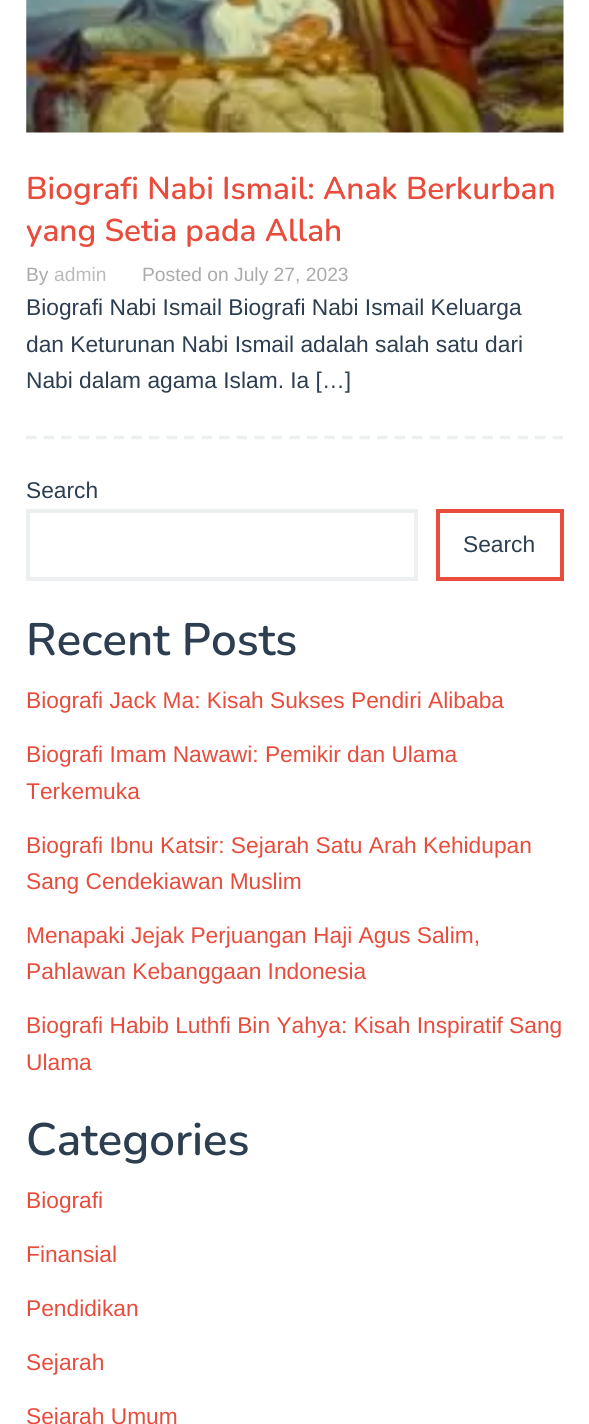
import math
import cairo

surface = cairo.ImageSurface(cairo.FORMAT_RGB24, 589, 1424)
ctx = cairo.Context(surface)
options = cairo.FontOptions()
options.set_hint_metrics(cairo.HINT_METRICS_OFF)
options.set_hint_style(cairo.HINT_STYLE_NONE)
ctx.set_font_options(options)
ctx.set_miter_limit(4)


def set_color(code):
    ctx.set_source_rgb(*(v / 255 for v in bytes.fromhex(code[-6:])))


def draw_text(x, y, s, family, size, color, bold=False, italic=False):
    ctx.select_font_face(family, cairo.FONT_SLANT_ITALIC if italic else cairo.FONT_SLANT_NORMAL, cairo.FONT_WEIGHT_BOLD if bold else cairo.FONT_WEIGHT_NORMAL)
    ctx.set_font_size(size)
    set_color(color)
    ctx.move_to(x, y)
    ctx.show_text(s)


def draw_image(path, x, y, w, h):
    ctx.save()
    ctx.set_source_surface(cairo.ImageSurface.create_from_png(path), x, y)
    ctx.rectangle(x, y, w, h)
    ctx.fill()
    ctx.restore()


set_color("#ffffff")
ctx.paint()
ctx.new_path()
ctx.move_to(26, 437.5)
ctx.line_to(563.5, 437.5)
set_color("#ecf0f1")
ctx.set_line_width(3.5)
ctx.set_dash([10.5, 7.05])
ctx.stroke()
draw_image("assets/img1.png", 26, 0, 538, 133)
draw_text(26, 199, "Biografi Nabi Ismail: Anak Berkurban", "Nunito SemiBold", 31.5, "#e74c3c")
draw_text(26, 241, "yang Setia pada Allah", "Nunito SemiBold", 31.5, "#e74c3c")
draw_text(26, 281, "By", "Liberation Sans", 19.25, "#aaaaaa")
draw_text(54, 281, "admin", "Liberation Sans", 19.25, "#bbbbbb")
draw_text(142, 281, "Posted on July 27, 2023", "Liberation Sans", 19.25, "#aaaaaa")
draw_text(26, 315, "Biografi Nabi Ismail Biografi Nabi Ismail Keluarga", "Liberation Sans", 22.75, "#2c3e50")
draw_text(26, 352, "dan Keturunan Nabi Ismail adalah salah satu dari", "Liberation Sans", 22.75, "#2c3e50")
draw_text(26, 388, "Nabi dalam agama Islam. Ia […]", "Liberation Sans", 22.75, "#2c3e50")
draw_text(26, 498, "Search", "Liberation Sans", 22.75, "#2c3e50")
ctx.rectangle(28, 511, 388, 68)
set_color("#ecf0f1")
ctx.set_line_width(4)
ctx.set_dash([])
ctx.stroke()
ctx.rectangle(438, 511, 124, 68)
set_color("#e74c3c")
ctx.stroke()
draw_text(463, 552, "Search", "Liberation Sans", 22.75, "#2c3e50")
draw_text(26, 655, "Recent Posts", "Nunito SemiBold", 45.5, "#2c3e50")
draw_text(26, 708, "Biografi Jack Ma: Kisah Sukses Pendiri Alibaba", "Liberation Sans", 22.75, "#e74c3c")
draw_text(26, 762, "Biografi Imam Nawawi: Pemikir dan Ulama", "Liberation Sans", 22.75, "#e74c3c")
draw_text(26, 799, "Terkemuka", "Liberation Sans", 22.75, "#e74c3c")
draw_text(26, 853, "Biografi Ibnu Katsir: Sejarah Satu Arah Kehidupan", "Liberation Sans", 22.75, "#e74c3c")
draw_text(26, 889, "Sang Cendekiawan Muslim", "Liberation Sans", 22.75, "#e74c3c")
draw_text(26, 943, "Menapaki Jejak Perjuangan Haji Agus Salim,", "Liberation Sans", 22.75, "#e74c3c")
draw_text(26, 979, "Pahlawan Kebanggaan Indonesia", "Liberation Sans", 22.75, "#e74c3c")
draw_text(26, 1033, "Biografi Habib Luthfi Bin Yahya: Kisah Inspiratif Sang", "Liberation Sans", 22.75, "#e74c3c")
draw_text(26, 1070, "Ulama", "Liberation Sans", 22.75, "#e74c3c")
draw_text(26, 1155, "Categories", "Nunito SemiBold", 45.5, "#2c3e50")
draw_text(26, 1208, "Biografi", "Liberation Sans", 22.75, "#e74c3c")
draw_text(26, 1262, "Finansial", "Liberation Sans", 22.75, "#e74c3c")
draw_text(26, 1316, "Pendidikan", "Liberation Sans", 22.75, "#e74c3c")
draw_text(26, 1370, "Sejarah", "Liberation Sans", 22.75, "#e74c3c")
draw_text(26, 1424, "Sejarah Umum", "Liberation Sans", 22.75, "#e74c3c")
surface.write_to_png("output.png")
